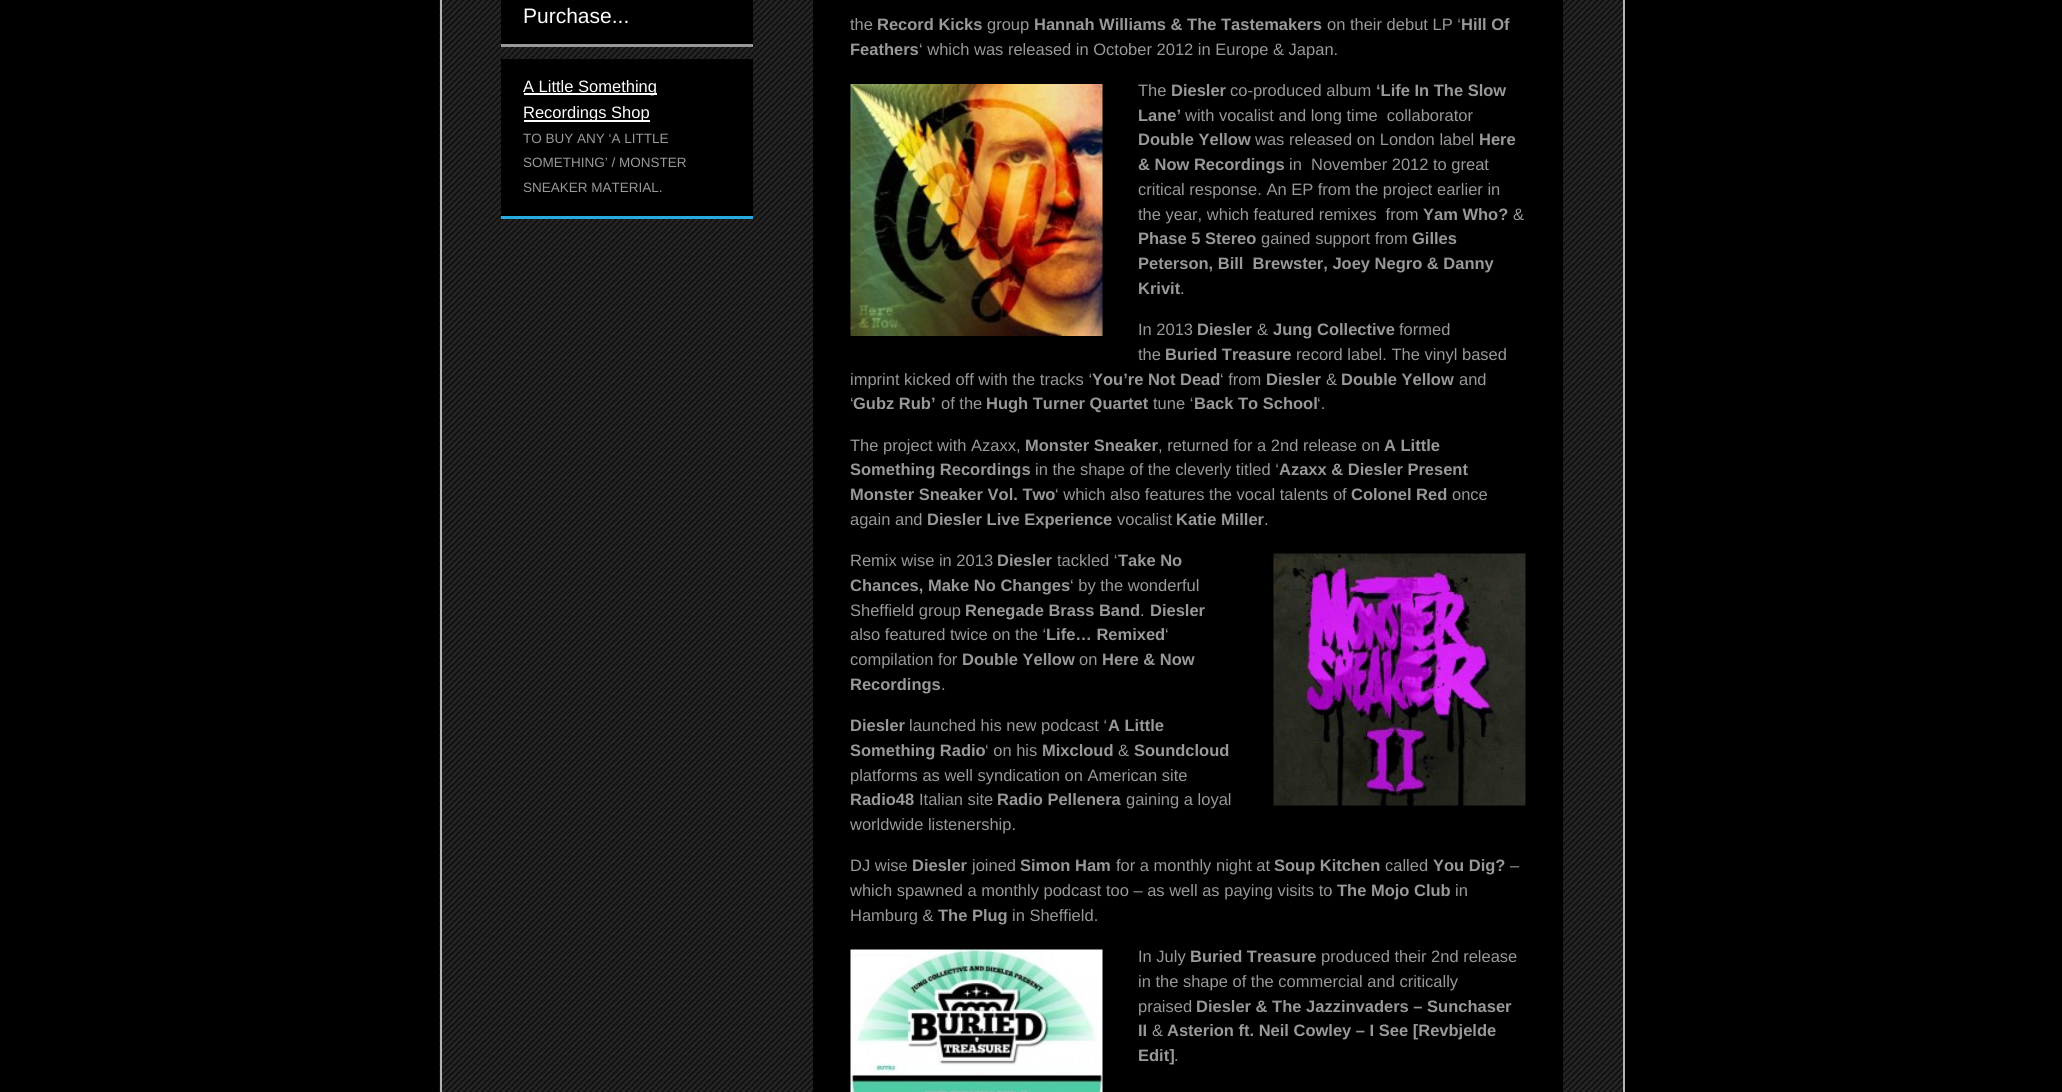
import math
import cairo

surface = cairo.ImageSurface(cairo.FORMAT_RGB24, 2062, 1092)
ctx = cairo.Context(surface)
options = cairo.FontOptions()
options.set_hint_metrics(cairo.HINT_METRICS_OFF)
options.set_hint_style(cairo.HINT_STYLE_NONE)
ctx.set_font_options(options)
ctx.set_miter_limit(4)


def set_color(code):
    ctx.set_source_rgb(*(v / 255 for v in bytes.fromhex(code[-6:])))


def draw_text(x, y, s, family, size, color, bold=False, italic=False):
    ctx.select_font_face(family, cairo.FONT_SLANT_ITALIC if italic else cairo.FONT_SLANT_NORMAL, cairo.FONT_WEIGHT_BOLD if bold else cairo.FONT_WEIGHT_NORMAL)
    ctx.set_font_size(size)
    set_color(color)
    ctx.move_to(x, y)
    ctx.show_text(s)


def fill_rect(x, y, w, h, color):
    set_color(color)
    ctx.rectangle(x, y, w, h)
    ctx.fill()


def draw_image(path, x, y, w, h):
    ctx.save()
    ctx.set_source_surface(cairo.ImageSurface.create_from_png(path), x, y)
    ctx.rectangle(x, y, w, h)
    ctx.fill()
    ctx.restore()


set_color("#000000")
ctx.paint()
draw_image("assets/img1.png", 439, 0, 1184, 1092)
fill_rect(1623, 0, 2, 1092, "#b3b5b5")
fill_rect(440, 0, 2, 1092, "#b3b5b5")
fill_rect(501, 0, 252, 44, "#000000")
fill_rect(501, 44, 252, 3, "#999999")
draw_text(523, 23, "Purchase...", "Liberation Sans", 21, "#ffffff")
fill_rect(501, 59, 252, 157, "#000000")
fill_rect(501, 216, 252, 3, "#26ace1")
fill_rect(524, 93, 133, 2, "#ffffff")
draw_text(523, 92, "A Little Something", "Liberation Sans", 16.5, "#ffffff")
fill_rect(524, 120, 126, 2, "#ffffff")
draw_text(523, 118, "Recordings Shop", "Liberation Sans", 16.5, "#ffffff")
draw_text(523, 143, "TO BUY ANY ‘A LITTLE", "Liberation Sans", 13.5, "#999999")
draw_text(523, 167, "SOMETHING’ / MONSTER", "Liberation Sans", 13.5, "#999999")
draw_text(523, 192, "SNEAKER MATERIAL.", "Liberation Sans", 13.5, "#999999")
fill_rect(813, 0, 750, 1092, "#000000")
draw_text(850, 30, "the", "Liberation Sans", 16.5, "#999999")
draw_text(877, 30, "Record Kicks", "Liberation Sans", 16.5, "#999999", bold=True)
draw_text(987, 30, "group", "Liberation Sans", 16.5, "#999999")
draw_text(1034, 30, "Hannah Williams & The Tastemakers", "Liberation Sans", 16.5, "#999999", bold=True)
draw_text(1327, 30, "on their debut LP ‘", "Liberation Sans", 16.5, "#999999")
draw_text(1461, 30, "Hill Of", "Liberation Sans", 16.5, "#999999", bold=True)
draw_text(850, 55, "Feathers", "Liberation Sans", 16.5, "#999999", bold=True)
draw_text(919, 55, "‘ which was released in October 2012 in Europe & Japan.", "Liberation Sans", 16.5, "#999999")
draw_image("assets/img2.png", 850, 84, 253, 252)
draw_text(1138, 96, "The", "Liberation Sans", 16.5, "#999999")
draw_text(1171, 96, "Diesler", "Liberation Sans", 16.5, "#999999", bold=True)
draw_text(1230, 96, "co-produced album", "Liberation Sans", 16.5, "#999999")
draw_text(1376, 96, "‘Life In The Slow", "Liberation Sans", 16.5, "#999999", bold=True)
draw_text(1138, 121, "Lane’", "Liberation Sans", 16.5, "#999999", bold=True)
draw_text(1185, 121, "with vocalist and long time  collaborator", "Liberation Sans", 16.5, "#999999")
draw_text(1138, 145, "Double Yellow", "Liberation Sans", 16.5, "#999999", bold=True)
draw_text(1255, 145, "was released on London label", "Liberation Sans", 16.5, "#999999")
draw_text(1479, 145, "Here", "Liberation Sans", 16.5, "#999999", bold=True)
draw_text(1138, 170, "& Now Recordings", "Liberation Sans", 16.5, "#999999", bold=True)
draw_text(1289, 170, "in  November 2012 to great", "Liberation Sans", 16.5, "#999999")
draw_text(1138, 195, "critical response. An EP from the project earlier in", "Liberation Sans", 16.5, "#999999")
draw_text(1138, 220, "the year, which featured remixes  from", "Liberation Sans", 16.5, "#999999")
draw_text(1423, 220, "Yam Who?", "Liberation Sans", 16.5, "#999999", bold=True)
draw_text(1513, 220, "&", "Liberation Sans", 16.5, "#999999")
draw_text(1138, 244, "Phase 5 Stereo", "Liberation Sans", 16.5, "#999999", bold=True)
draw_text(1261, 244, "gained support from", "Liberation Sans", 16.5, "#999999")
draw_text(1412, 244, "Gilles", "Liberation Sans", 16.5, "#999999", bold=True)
draw_text(1138, 269, "Peterson, Bill  Brewster, Joey Negro & Danny", "Liberation Sans", 16.5, "#999999", bold=True)
draw_text(1138, 294, "Krivit", "Liberation Sans", 16.5, "#999999", bold=True)
draw_text(1180, 294, ".", "Liberation Sans", 16.5, "#999999")
draw_text(1138, 335, "In 2013", "Liberation Sans", 16.5, "#999999")
draw_text(1197, 335, "Diesler", "Liberation Sans", 16.5, "#999999", bold=True)
draw_text(1257, 335, "&", "Liberation Sans", 16.5, "#999999")
draw_text(1273, 335, "Jung Collective", "Liberation Sans", 16.5, "#999999", bold=True)
draw_text(1399, 335, "formed", "Liberation Sans", 16.5, "#999999")
draw_text(1138, 360, "the", "Liberation Sans", 16.5, "#999999")
draw_text(1165, 360, "Buried Treasure", "Liberation Sans", 16.5, "#999999", bold=True)
draw_text(1296, 360, "record label. The vinyl based", "Liberation Sans", 16.5, "#999999")
draw_text(850, 385, "imprint kicked off with the tracks ‘", "Liberation Sans", 16.5, "#999999")
draw_text(1092, 385, "You’re Not Dead", "Liberation Sans", 16.5, "#999999", bold=True)
draw_text(1220, 385, "‘ from", "Liberation Sans", 16.5, "#999999")
draw_text(1266, 385, "Diesler", "Liberation Sans", 16.5, "#999999", bold=True)
draw_text(1326, 385, "&", "Liberation Sans", 16.5, "#999999")
draw_text(1341, 385, "Double Yellow", "Liberation Sans", 16.5, "#999999", bold=True)
draw_text(1459, 385, "and", "Liberation Sans", 16.5, "#999999")
draw_text(850, 409, "‘", "Liberation Sans", 16.5, "#999999")
draw_text(853, 409, "Gubz Rub’", "Liberation Sans", 16.5, "#999999", bold=True)
draw_text(941, 409, "of the", "Liberation Sans", 16.5, "#999999")
draw_text(986, 409, "Hugh Turner Quartet", "Liberation Sans", 16.5, "#999999", bold=True)
draw_text(1153, 409, "tune ‘", "Liberation Sans", 16.5, "#999999")
draw_text(1194, 409, "Back To School", "Liberation Sans", 16.5, "#999999", bold=True)
draw_text(1317, 409, "‘.", "Liberation Sans", 16.5, "#999999")
draw_text(850, 451, "The project with Azaxx,", "Liberation Sans", 16.5, "#999999")
draw_text(1025, 451, "Monster Sneaker", "Liberation Sans", 16.5, "#999999", bold=True)
draw_text(1158, 451, ", returned for a 2nd release on", "Liberation Sans", 16.5, "#999999")
draw_text(1384, 451, "A Little", "Liberation Sans", 16.5, "#999999", bold=True)
draw_text(850, 475, "Something Recordings", "Liberation Sans", 16.5, "#999999", bold=True)
draw_text(1035, 475, "in the shape of the cleverly titled ‘", "Liberation Sans", 16.5, "#999999")
draw_text(1279, 475, "Azaxx & Diesler Present", "Liberation Sans", 16.5, "#999999", bold=True)
draw_text(850, 500, "Monster Sneaker Vol. Two", "Liberation Sans", 16.5, "#999999", bold=True)
draw_text(1055, 500, "‘ which also features the vocal talents of", "Liberation Sans", 16.5, "#999999")
draw_text(1351, 500, "Colonel Red", "Liberation Sans", 16.5, "#999999", bold=True)
draw_text(1452, 500, "once", "Liberation Sans", 16.5, "#999999")
draw_text(850, 525, "again and", "Liberation Sans", 16.5, "#999999")
draw_text(927, 525, "Diesler Live Experience", "Liberation Sans", 16.5, "#999999", bold=True)
draw_text(1117, 525, "vocalist", "Liberation Sans", 16.5, "#999999")
draw_text(1176, 525, "Katie Miller", "Liberation Sans", 16.5, "#999999", bold=True)
draw_text(1264, 525, ".", "Liberation Sans", 16.5, "#999999")
draw_text(850, 566, "Remix wise in 2013", "Liberation Sans", 16.5, "#999999")
draw_text(997, 566, "Diesler", "Liberation Sans", 16.5, "#999999", bold=True)
draw_text(1057, 566, "tackled ‘", "Liberation Sans", 16.5, "#999999")
draw_text(1118, 566, "Take No", "Liberation Sans", 16.5, "#999999", bold=True)
draw_text(850, 591, "Chances, Make No Changes", "Liberation Sans", 16.5, "#999999", bold=True)
draw_text(1070, 591, "‘ by the wonderful", "Liberation Sans", 16.5, "#999999")
draw_text(850, 616, "Sheffield group", "Liberation Sans", 16.5, "#999999")
draw_text(965, 616, "Renegade Brass Band", "Liberation Sans", 16.5, "#999999", bold=True)
draw_text(1140, 616, ".", "Liberation Sans", 16.5, "#999999")
draw_text(1150, 616, "Diesler", "Liberation Sans", 16.5, "#999999", bold=True)
draw_text(850, 640, "also featured twice on the ‘", "Liberation Sans", 16.5, "#999999")
draw_text(1046, 640, "Life… Remixed", "Liberation Sans", 16.5, "#999999", bold=True)
draw_text(1165, 640, "‘", "Liberation Sans", 16.5, "#999999")
draw_text(850, 665, "compilation for", "Liberation Sans", 16.5, "#999999")
draw_text(962, 665, "Double Yellow", "Liberation Sans", 16.5, "#999999", bold=True)
draw_text(1079, 665, "on", "Liberation Sans", 16.5, "#999999")
draw_text(1102, 665, "Here & Now", "Liberation Sans", 16.5, "#999999", bold=True)
draw_text(850, 690, "Recordings", "Liberation Sans", 16.5, "#999999", bold=True)
draw_text(941, 690, ".", "Liberation Sans", 16.5, "#999999")
draw_image("assets/img3.png", 1273, 553, 253, 253)
draw_text(850, 731, "Diesler", "Liberation Sans", 16.5, "#999999", bold=True)
draw_text(909, 731, "launched his new podcast ‘", "Liberation Sans", 16.5, "#999999")
draw_text(1108, 731, "A Little", "Liberation Sans", 16.5, "#999999", bold=True)
draw_text(850, 756, "Something Radio", "Liberation Sans", 16.5, "#999999", bold=True)
draw_text(985, 756, "‘ on his", "Liberation Sans", 16.5, "#999999")
draw_text(1042, 756, "Mixcloud", "Liberation Sans", 16.5, "#999999", bold=True)
draw_text(1118, 756, "&", "Liberation Sans", 16.5, "#999999")
draw_text(1134, 756, "Soundcloud", "Liberation Sans", 16.5, "#999999", bold=True)
draw_text(850, 781, "platforms as well syndication on American site", "Liberation Sans", 16.5, "#999999")
draw_text(850, 805, "Radio48", "Liberation Sans", 16.5, "#999999", bold=True)
draw_text(919, 805, "Italian site", "Liberation Sans", 16.5, "#999999")
draw_text(997, 805, "Radio Pellenera", "Liberation Sans", 16.5, "#999999", bold=True)
draw_text(1126, 805, "gaining a loyal", "Liberation Sans", 16.5, "#999999")
draw_text(850, 830, "worldwide listenership.", "Liberation Sans", 16.5, "#999999")
draw_text(850, 871, "DJ wise", "Liberation Sans", 16.5, "#999999")
draw_text(912, 871, "Diesler", "Liberation Sans", 16.5, "#999999", bold=True)
draw_text(972, 871, "joined", "Liberation Sans", 16.5, "#999999")
draw_text(1020, 871, "Simon Ham", "Liberation Sans", 16.5, "#999999", bold=True)
draw_text(1116, 871, "for a monthly night at", "Liberation Sans", 16.5, "#999999")
draw_text(1274, 871, "Soup Kitchen", "Liberation Sans", 16.5, "#999999", bold=True)
draw_text(1385, 871, "called", "Liberation Sans", 16.5, "#999999")
draw_text(1433, 871, "You Dig?", "Liberation Sans", 16.5, "#999999", bold=True)
draw_text(1510, 871, "–", "Liberation Sans", 16.5, "#999999")
draw_text(850, 896, "which spawned a monthly podcast too – as well as paying visits to", "Liberation Sans", 16.5, "#999999")
draw_text(1337, 896, "The Mojo Club", "Liberation Sans", 16.5, "#999999", bold=True)
draw_text(1455, 896, "in", "Liberation Sans", 16.5, "#999999")
draw_text(850, 921, "Hamburg &", "Liberation Sans", 16.5, "#999999")
draw_text(938, 921, "The Plug", "Liberation Sans", 16.5, "#999999", bold=True)
draw_text(1012, 921, "in Sheffield.", "Liberation Sans", 16.5, "#999999")
draw_image("assets/img4.png", 850, 949, 253, 143)
draw_text(1138, 962, "In July", "Liberation Sans", 16.5, "#999999")
draw_text(1190, 962, "Buried Treasure", "Liberation Sans", 16.5, "#999999", bold=True)
draw_text(1321, 962, "produced their 2nd release", "Liberation Sans", 16.5, "#999999")
draw_text(1138, 987, "in the shape of the commercial and critically", "Liberation Sans", 16.5, "#999999")
draw_text(1138, 1012, "praised", "Liberation Sans", 16.5, "#999999")
draw_text(1196, 1012, "Diesler & The Jazzinvaders – Sunchaser", "Liberation Sans", 16.5, "#999999", bold=True)
draw_text(1138, 1036, "II", "Liberation Sans", 16.5, "#999999", bold=True)
draw_text(1152, 1036, "&", "Liberation Sans", 16.5, "#999999")
draw_text(1167, 1036, "Asterion ft. Neil Cowley – I See [Revbjelde", "Liberation Sans", 16.5, "#999999", bold=True)
draw_text(1138, 1061, "Edit]", "Liberation Sans", 16.5, "#999999", bold=True)
draw_text(1174, 1061, ".", "Liberation Sans", 16.5, "#999999")
surface.write_to_png("output.png")
